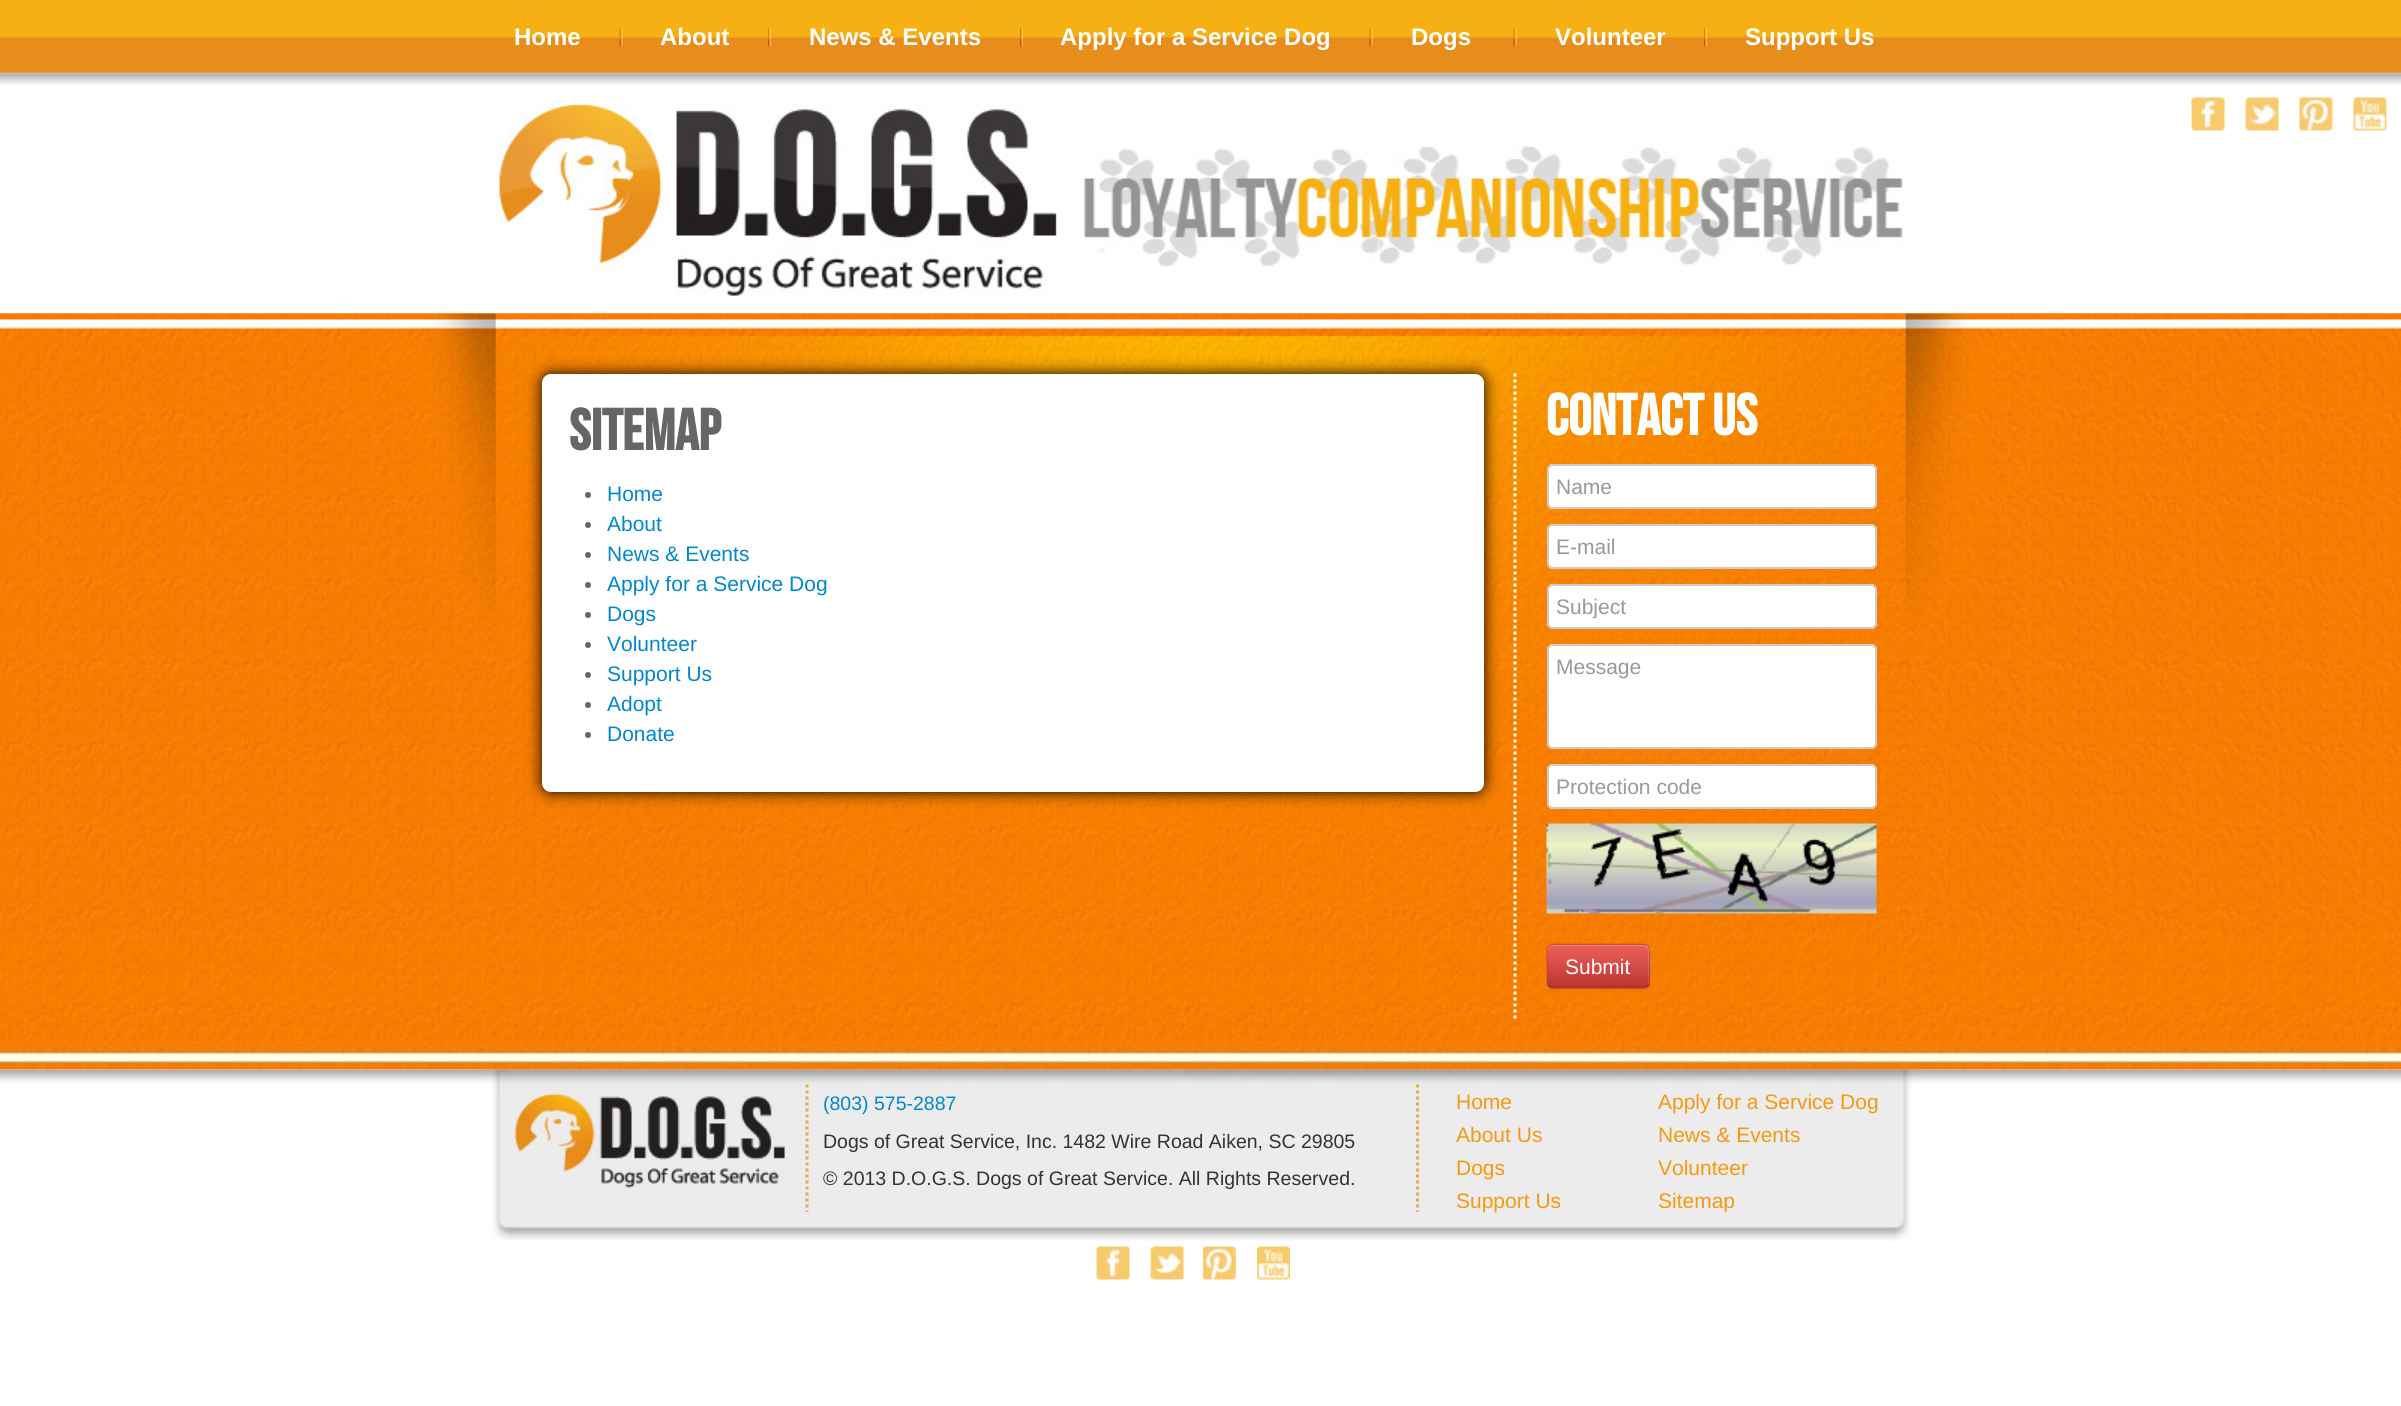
import math
import cairo

surface = cairo.ImageSurface(cairo.FORMAT_RGB24, 2401, 1406)
ctx = cairo.Context(surface)
options = cairo.FontOptions()
options.set_hint_metrics(cairo.HINT_METRICS_OFF)
options.set_hint_style(cairo.HINT_STYLE_NONE)
ctx.set_font_options(options)
ctx.set_miter_limit(4)


def set_color(code):
    ctx.set_source_rgb(*(v / 255 for v in bytes.fromhex(code[-6:])))


def draw_text(x, y, s, family, size, color, bold=False, italic=False):
    ctx.select_font_face(family, cairo.FONT_SLANT_ITALIC if italic else cairo.FONT_SLANT_NORMAL, cairo.FONT_WEIGHT_BOLD if bold else cairo.FONT_WEIGHT_NORMAL)
    ctx.set_font_size(size)
    set_color(color)
    ctx.move_to(x, y)
    ctx.show_text(s)


def rounded_rect(x, y, w, h, r):
    ctx.new_sub_path()
    for i, (u, v) in enumerate([(x + w - r, y + h - r), (x + r, y + h - r), (x + r, y + r), (x + w - r, y + r)]):
        ctx.arc(u, v, r, i * math.pi / 2, (i + 1) * math.pi / 2)
    ctx.close_path()


def draw_shadow(x, y, w, h, r, blur, alpha):
    ctx.push_group_with_content(cairo.CONTENT_ALPHA)
    ctx.set_operator(cairo.OPERATOR_SOURCE)
    for i in range(15, -16, -2):
        e = blur * i / 6
        if min(w, h) + 2 * e > 0:
            ctx.set_source_rgba(0, 0, 0, alpha * math.erfc((i - 1) / 8.5) / 2)
            rounded_rect(x - e, y - e, w + 2 * e, h + 2 * e, max(0, min(r + e + blur * .6, min(w, h) / 2 + e)))
            ctx.fill()
    ctx.mask(ctx.pop_group())


def draw_image(path, x, y, w, h):
    ctx.save()
    ctx.set_source_surface(cairo.ImageSurface.create_from_png(path), x, y)
    ctx.rectangle(x, y, w, h)
    ctx.fill()
    ctx.restore()


set_color("#ffffff")
ctx.paint()
draw_image("assets/img1.png", 0, 0, 2401, 74)
draw_text(514, 45, "Home", "Liberation Sans", 24, "#ffffff", bold=True)
draw_image("assets/img2.png", 619, 28, 4, 19)
draw_text(660, 45, "About", "Liberation Sans", 24, "#ffffff", bold=True)
draw_image("assets/img3.png", 768, 28, 3, 19)
draw_text(809, 45, "News & Events", "Liberation Sans", 24, "#ffffff", bold=True)
draw_image("assets/img4.png", 1020, 28, 3, 19)
draw_text(1060, 45, "Apply for a Service Dog", "Liberation Sans", 24, "#ffffff", bold=True)
draw_image("assets/img2.png", 1369, 28, 4, 19)
draw_text(1411, 45, "Dogs", "Liberation Sans", 24, "#ffffff", bold=True)
draw_image("assets/img2.png", 1513, 28, 4, 19)
draw_text(1555, 45, "Volunteer", "Liberation Sans", 24, "#ffffff", bold=True)
draw_image("assets/img3.png", 1704, 28, 3, 19)
draw_text(1745, 45, "Support Us", "Liberation Sans", 24, "#ffffff", bold=True)
draw_image("assets/img5.png", 0, 73, 2401, 13)
draw_image("assets/img6.png", 496, 103, 561, 193)
draw_image("assets/img7.png", 1084, 145, 822, 122)
draw_image("assets/img8.png", 2191, 97, 34, 34)
draw_image("assets/img9.png", 2245, 97, 34, 34)
draw_image("assets/img10.png", 2299, 97, 34, 34)
draw_image("assets/img11.png", 2353, 97, 34, 34)
draw_image("assets/img12.png", 0, 313, 2401, 1)
draw_image("assets/img13.png", 0, 933, 2401, 108)
draw_image("assets/img14.png", 0, 313, 2401, 620)
set_color("#000000")
draw_shadow(542, 374, 942, 418, 9, 7.5, 1)
set_color("#ffffff")
rounded_rect(542, 374, 942, 418, 9)
ctx.fill()
draw_text(569, 450, "Sitemap", "Bebas Neue", 58, "#666666", bold=True)
ctx.new_path()
ctx.arc(588, 495, 3, 0, 2 * math.pi)
ctx.fill()
draw_text(607, 501, "Home", "Liberation Sans", 21, "#0088cc")
set_color("#666666")
ctx.new_path()
ctx.arc(588, 525, 3, 0, 2 * math.pi)
ctx.fill()
draw_text(607, 531, "About", "Liberation Sans", 21, "#0088cc")
set_color("#666666")
ctx.new_path()
ctx.arc(588, 555, 3, 0, 2 * math.pi)
ctx.fill()
draw_text(607, 561, "News & Events", "Liberation Sans", 21, "#0088cc")
set_color("#666666")
ctx.new_path()
ctx.arc(588, 585, 3, 0, 2 * math.pi)
ctx.fill()
draw_text(607, 591, "Apply for a Service Dog", "Liberation Sans", 21, "#0088cc")
set_color("#666666")
ctx.new_path()
ctx.arc(588, 615, 3, 0, 2 * math.pi)
ctx.fill()
draw_text(607, 621, "Dogs", "Liberation Sans", 21, "#0088cc")
set_color("#666666")
ctx.new_path()
ctx.arc(588, 645, 3, 0, 2 * math.pi)
ctx.fill()
draw_text(607, 651, "Volunteer", "Liberation Sans", 21, "#0088cc")
set_color("#666666")
ctx.new_path()
ctx.arc(588, 675, 3, 0, 2 * math.pi)
ctx.fill()
draw_text(607, 681, "Support Us", "Liberation Sans", 21, "#0088cc")
set_color("#666666")
ctx.new_path()
ctx.arc(588, 705, 3, 0, 2 * math.pi)
ctx.fill()
draw_text(607, 711, "Adopt", "Liberation Sans", 21, "#0088cc")
set_color("#666666")
ctx.new_path()
ctx.arc(588, 735, 3, 0, 2 * math.pi)
ctx.fill()
draw_text(607, 741, "Donate", "Liberation Sans", 21, "#0088cc")
ctx.new_path()
ctx.move_to(1515, 373.5)
ctx.line_to(1515, 1018.5)
set_color("#ffffff")
ctx.set_line_width(3)
ctx.set_dash([3, 3])
ctx.stroke()
draw_text(1546, 435, "Contact Us", "Bebas Neue", 58, "#ffffff", bold=True)
rounded_rect(1547, 464, 330, 45, 6)
ctx.fill()
set_color("#ececec")
ctx.new_path()
ctx.move_to(1552, 466)
ctx.line_to(1870, 466)
ctx.curve_to(1873, 466, 1875, 469, 1875, 471)
ctx.curve_to(1875, 468, 1873, 465, 1870, 465)
ctx.line_to(1553, 465)
ctx.curve_to(1550, 465, 1548, 468, 1548, 471)
ctx.curve_to(1548, 469, 1550, 466, 1552, 466)
ctx.close_path()
ctx.fill()
rounded_rect(1548, 465, 328, 43, 5)
set_color("#cccccc")
ctx.set_line_width(2)
ctx.set_dash([])
ctx.stroke()
draw_text(1556, 494, "Name", "Liberation Sans", 21, "#999999")
set_color("#ffffff")
rounded_rect(1547, 524, 330, 45, 6)
ctx.fill()
set_color("#ececec")
ctx.new_path()
ctx.move_to(1552, 526)
ctx.line_to(1870, 526)
ctx.curve_to(1873, 526, 1875, 529, 1875, 531)
ctx.curve_to(1875, 528, 1873, 525, 1870, 525)
ctx.line_to(1553, 525)
ctx.curve_to(1550, 525, 1548, 528, 1548, 531)
ctx.curve_to(1548, 529, 1550, 526, 1552, 526)
ctx.close_path()
ctx.fill()
rounded_rect(1548, 525, 328, 43, 5)
set_color("#cccccc")
ctx.stroke()
draw_text(1556, 554, "E-mail", "Liberation Sans", 21, "#999999")
set_color("#ffffff")
rounded_rect(1547, 584, 330, 45, 6)
ctx.fill()
set_color("#ececec")
ctx.new_path()
ctx.move_to(1552, 586)
ctx.line_to(1870, 586)
ctx.curve_to(1873, 586, 1875, 589, 1875, 591)
ctx.curve_to(1875, 588, 1873, 585, 1870, 585)
ctx.line_to(1553, 585)
ctx.curve_to(1550, 585, 1548, 588, 1548, 591)
ctx.curve_to(1548, 589, 1550, 586, 1552, 586)
ctx.close_path()
ctx.fill()
rounded_rect(1548, 585, 328, 43, 5)
set_color("#cccccc")
ctx.stroke()
ctx.save()
ctx.rectangle(1557, 594, 309, 24)
ctx.clip()
draw_text(1556, 614, "Subject", "Liberation Sans", 21, "#999999")
ctx.restore()
set_color("#ffffff")
rounded_rect(1547, 644, 330, 105, 6)
ctx.fill()
set_color("#ececec")
ctx.new_path()
ctx.move_to(1552, 646)
ctx.line_to(1870, 646)
ctx.curve_to(1873, 646, 1875, 649, 1875, 651)
ctx.curve_to(1875, 648, 1873, 645, 1870, 645)
ctx.line_to(1553, 645)
ctx.curve_to(1550, 645, 1548, 648, 1548, 651)
ctx.curve_to(1548, 649, 1550, 646, 1552, 646)
ctx.close_path()
ctx.fill()
rounded_rect(1548, 645, 328, 103, 5)
set_color("#cccccc")
ctx.stroke()
draw_text(1556, 674, "Message", "Liberation Sans", 21, "#999999")
set_color("#ffffff")
rounded_rect(1547, 764, 330, 45, 6)
ctx.fill()
set_color("#ececec")
ctx.new_path()
ctx.move_to(1552, 766)
ctx.line_to(1870, 766)
ctx.curve_to(1873, 766, 1875, 769, 1875, 771)
ctx.curve_to(1875, 768, 1873, 765, 1870, 765)
ctx.line_to(1553, 765)
ctx.curve_to(1550, 765, 1548, 768, 1548, 771)
ctx.curve_to(1548, 769, 1550, 766, 1552, 766)
ctx.close_path()
ctx.fill()
rounded_rect(1548, 765, 328, 43, 5)
set_color("#cccccc")
ctx.stroke()
draw_text(1556, 794, "Protection code", "Liberation Sans", 21, "#999999")
draw_image("assets/img15.png", 1546, 823, 331, 91)
set_color("#000000")
draw_shadow(1547, 945, 103, 45, 6, 1.5, 0.05)
set_color("#da4f49")
rounded_rect(1547, 944, 103, 45, 6)
ctx.fill()
ctx.save()
rounded_rect(1547, 944, 103, 45, 6)
ctx.clip()
gradient = cairo.LinearGradient(1598, 945, 1598, 987)
gradient.add_color_stop_rgba(0, 0.933, 0.373, 0.357, 1)
gradient.add_color_stop_rgba(1, 0.741, 0.212, 0.184, 1)
ctx.set_source(gradient)
ctx.rectangle(1547, 945, 103, 42)
ctx.fill()
ctx.restore()
ctx.set_source_rgba(1, 1, 1, 0.2)
ctx.new_path()
ctx.move_to(1552, 946)
ctx.line_to(1644, 946)
ctx.curve_to(1646, 946, 1648, 949, 1648, 951)
ctx.line_to(1648, 985)
ctx.curve_to(1649, 984, 1649, 983, 1649, 982)
ctx.line_to(1649, 950)
ctx.curve_to(1649, 947, 1647, 945, 1644, 945)
ctx.line_to(1553, 945)
ctx.curve_to(1550, 945, 1548, 947, 1548, 950)
ctx.line_to(1548, 951)
ctx.curve_to(1548, 949, 1550, 946, 1552, 946)
ctx.close_path()
ctx.fill()
ctx.new_path()
ctx.move_to(1647.5, 986)
ctx.line_to(1644.5, 987.5)
ctx.line_to(1552, 987.5)
ctx.line_to(1549, 986)
ctx.set_source_rgba(0, 0, 0, 0.25)
ctx.set_line_width(1.5)
ctx.stroke()
ctx.new_path()
ctx.move_to(1549, 986)
ctx.curve_to(1546.5, 984, 1547, 980, 1547, 977)
ctx.line_to(1547, 966)
ctx.curve_to(1547, 942, 1543.5, 944, 1568, 944)
ctx.line_to(1629, 944)
ctx.curve_to(1653, 944, 1649, 942, 1649, 966)
ctx.line_to(1649, 977)
ctx.curve_to(1649, 980, 1650, 984, 1647.5, 986)
ctx.set_source_rgba(0, 0, 0, 0.1)
ctx.stroke()
draw_text(1565, 974, "Submit", "Liberation Sans", 21, "#ffffff")
draw_image("assets/img16.png", 0, 1041, 2401, 29)
draw_image("assets/img17.png", 0, 1069, 2401, 14)
draw_image("assets/img18.png", 484, 1069, 1435, 172)
draw_image("assets/img19.png", 512, 1085, 274, 104)
ctx.new_path()
ctx.move_to(1417.5, 1084.5)
ctx.line_to(1417.5, 1212)
set_color("#e8a958")
ctx.set_line_width(3)
ctx.set_dash([3, 3])
ctx.stroke()
ctx.new_path()
ctx.move_to(807, 1084.5)
ctx.line_to(807, 1212)
ctx.stroke()
draw_text(823, 1110, "(803) 575-2887", "Liberation Sans", 19.5, "#0088cc")
draw_text(823, 1148, "Dogs of Great Service, Inc. 1482 Wire Road Aiken, SC 29805", "Liberation Sans", 19.5, "#333333")
draw_text(823, 1185, "© 2013 D.O.G.S. Dogs of Great Service. All Rights Reserved.", "Liberation Sans", 19.5, "#333333")
draw_text(1456, 1109, "Home", "Liberation Sans", 21, "#f8980f")
draw_text(1658, 1109, "Apply for a Service Dog", "Liberation Sans", 21, "#f8980f")
draw_text(1456, 1142, "About Us", "Liberation Sans", 21, "#f8980f")
draw_text(1658, 1142, "News & Events", "Liberation Sans", 21, "#f8980f")
draw_text(1456, 1175, "Dogs", "Liberation Sans", 21, "#f8980f")
draw_text(1658, 1175, "Volunteer", "Liberation Sans", 21, "#f8980f")
draw_text(1456, 1208, "Support Us", "Liberation Sans", 21, "#f8980f")
draw_text(1658, 1208, "Sitemap", "Liberation Sans", 21, "#f8980f")
draw_image("assets/img20.png", 1096, 1246, 34, 34)
draw_image("assets/img9.png", 1150, 1246, 34, 34)
draw_image("assets/img21.png", 1203, 1246, 33, 34)
draw_image("assets/img22.png", 1257, 1246, 33, 34)
surface.write_to_png("output.png")
